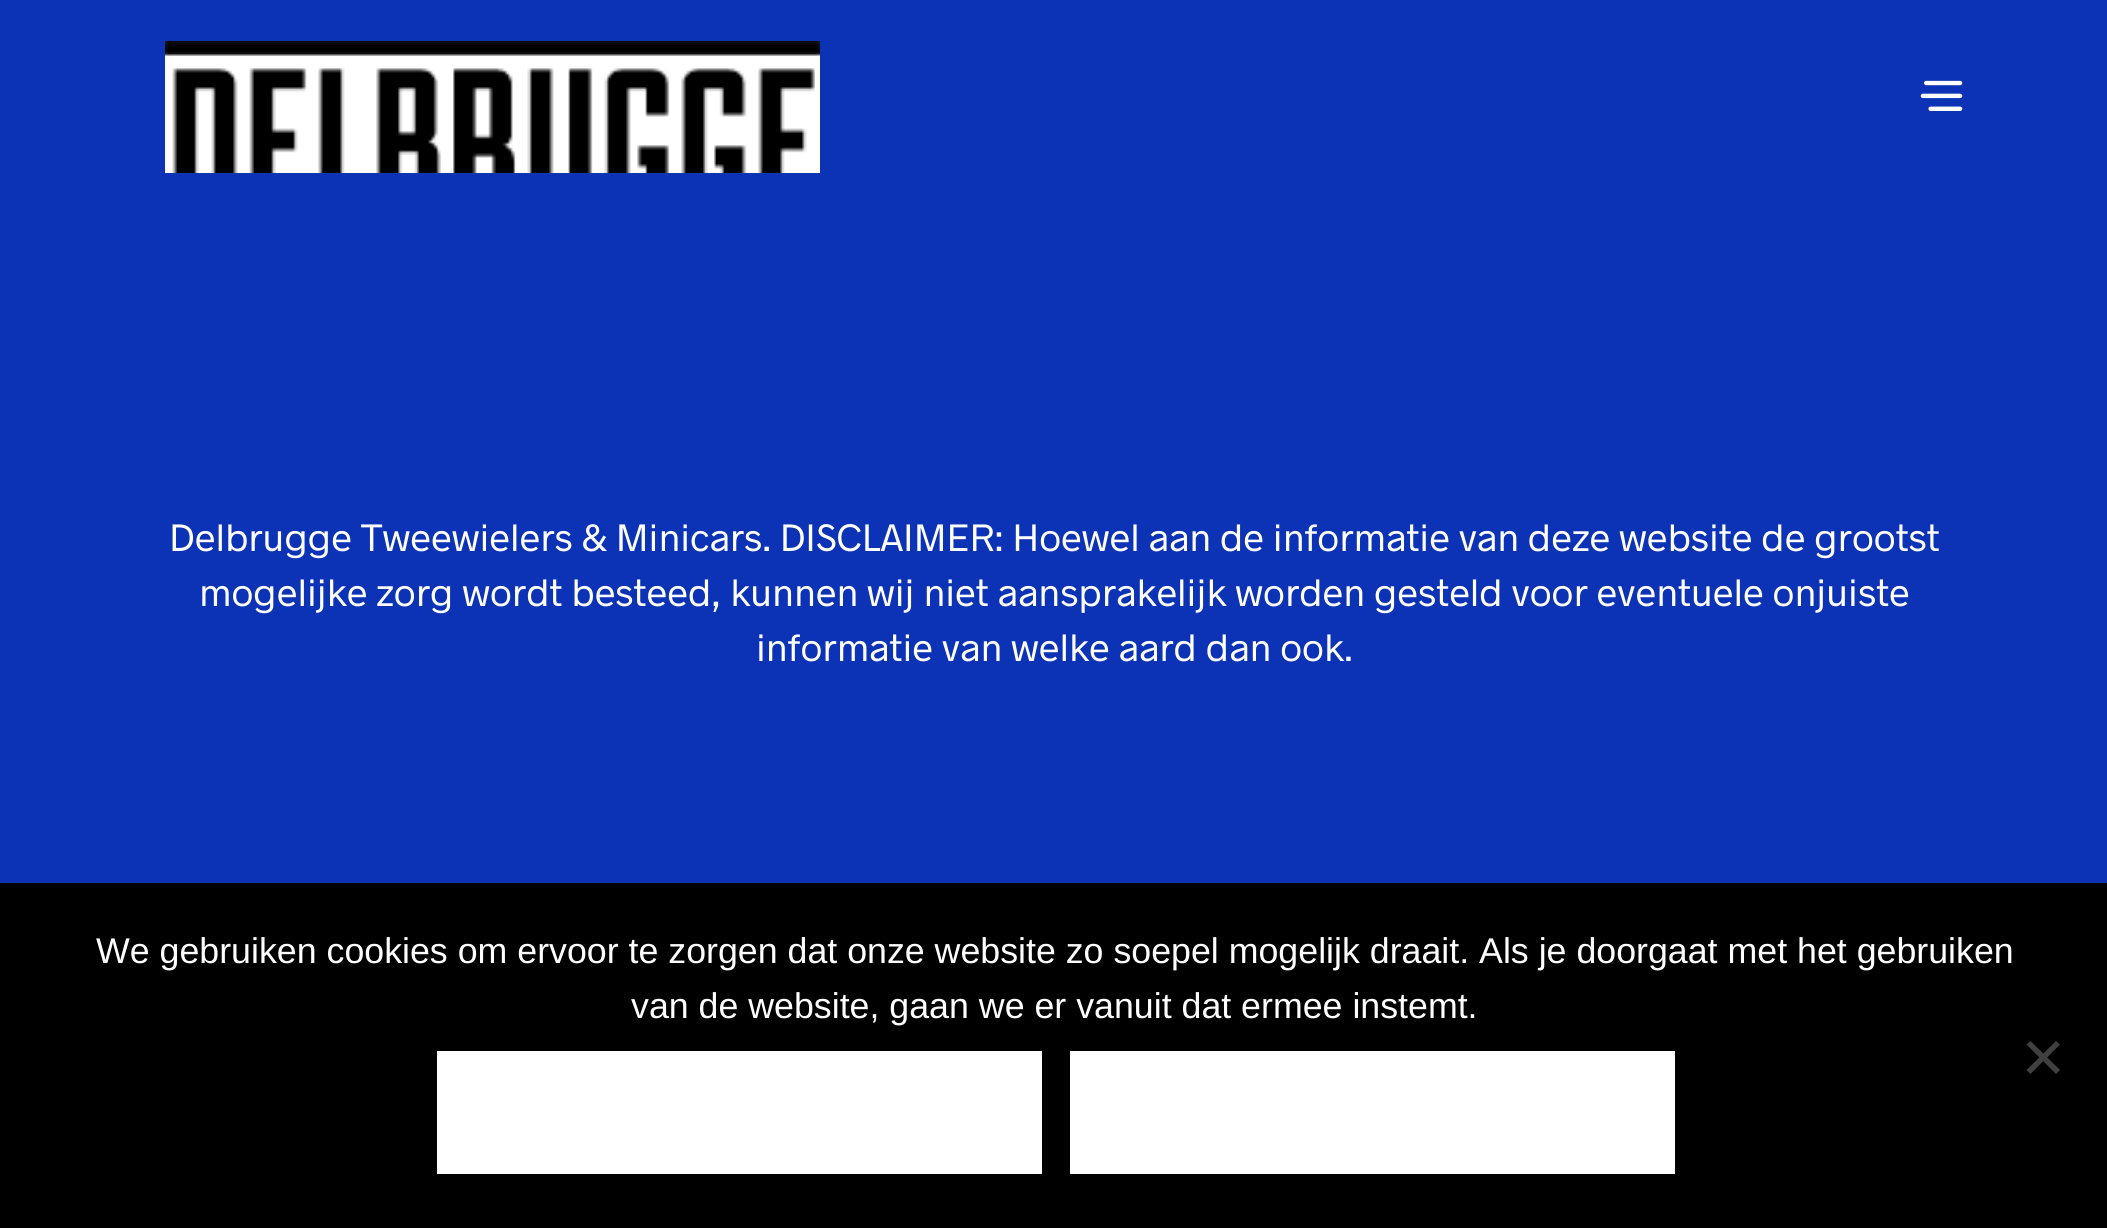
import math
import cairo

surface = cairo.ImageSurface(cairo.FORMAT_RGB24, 2107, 1228)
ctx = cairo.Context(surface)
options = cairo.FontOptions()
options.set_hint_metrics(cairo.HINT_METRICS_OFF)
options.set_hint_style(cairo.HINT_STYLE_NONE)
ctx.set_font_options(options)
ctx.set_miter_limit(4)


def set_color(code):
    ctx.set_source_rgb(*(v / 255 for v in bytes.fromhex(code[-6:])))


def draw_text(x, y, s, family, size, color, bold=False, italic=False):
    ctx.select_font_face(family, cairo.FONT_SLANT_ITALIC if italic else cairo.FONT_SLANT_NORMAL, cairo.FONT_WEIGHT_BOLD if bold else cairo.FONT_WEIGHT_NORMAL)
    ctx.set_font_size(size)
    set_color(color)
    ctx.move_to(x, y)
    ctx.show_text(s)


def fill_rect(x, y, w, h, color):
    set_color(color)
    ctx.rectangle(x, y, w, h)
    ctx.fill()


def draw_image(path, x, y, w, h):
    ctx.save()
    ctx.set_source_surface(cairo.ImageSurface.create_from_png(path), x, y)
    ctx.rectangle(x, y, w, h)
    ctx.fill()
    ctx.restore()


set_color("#0c33b5")
ctx.paint()
draw_image("assets/img1.png", 165, 41, 655, 132)
draw_image("assets/img2.png", 1920, 80, 43, 31)
draw_text(169, 551, "Delbrugge Tweewielers & Minicars. DISCLAIMER: Hoewel aan de informatie van deze website de grootst", "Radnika", 38.5, "#ffffff")
draw_text(199, 606, "mogelijke zorg wordt besteed, kunnen wij niet aansprakelijk worden gesteld voor eventuele onjuiste", "Radnika", 38.5, "#ffffff")
draw_text(756, 661, "informatie van welke aard dan ook.", "Radnika", 38.5, "#ffffff")
fill_rect(0, 883, 2107, 345, "#000000")
draw_text(96, 963, "We gebruiken cookies om ervoor te zorgen dat onze website zo soepel mogelijk draait. Als je doorgaat met het gebruiken", "Liberation Sans", 35.75, "#ffffff")
draw_text(631, 1018, "van de website, gaan we er vanuit dat ermee instemt.", "Liberation Sans", 35.75, "#ffffff")
fill_rect(437, 1051, 605, 123, "#ffffff")
fill_rect(1070, 1051, 605, 123, "#ffffff")
set_color("#404040")
ctx.new_path()
ctx.move_to(2056, 1041)
ctx.line_to(2060, 1044.5)
ctx.line_to(2030.5, 1074)
ctx.line_to(2026.5, 1070)
ctx.close_path()
ctx.fill()
ctx.new_path()
ctx.move_to(2026.5, 1044.5)
ctx.line_to(2030.5, 1041)
ctx.line_to(2060, 1070)
ctx.line_to(2056, 1074)
ctx.close_path()
ctx.fill()
surface.write_to_png("output.png")
